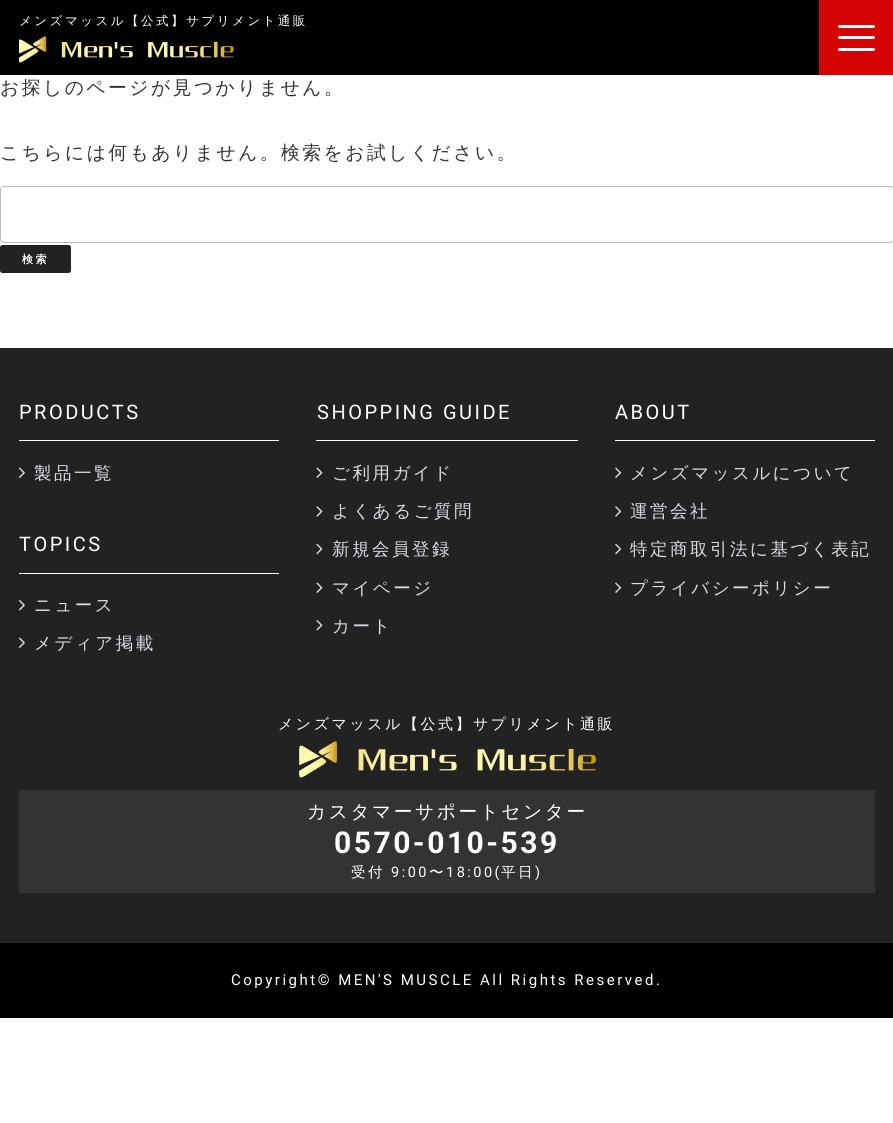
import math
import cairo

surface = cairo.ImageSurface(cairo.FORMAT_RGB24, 893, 1123)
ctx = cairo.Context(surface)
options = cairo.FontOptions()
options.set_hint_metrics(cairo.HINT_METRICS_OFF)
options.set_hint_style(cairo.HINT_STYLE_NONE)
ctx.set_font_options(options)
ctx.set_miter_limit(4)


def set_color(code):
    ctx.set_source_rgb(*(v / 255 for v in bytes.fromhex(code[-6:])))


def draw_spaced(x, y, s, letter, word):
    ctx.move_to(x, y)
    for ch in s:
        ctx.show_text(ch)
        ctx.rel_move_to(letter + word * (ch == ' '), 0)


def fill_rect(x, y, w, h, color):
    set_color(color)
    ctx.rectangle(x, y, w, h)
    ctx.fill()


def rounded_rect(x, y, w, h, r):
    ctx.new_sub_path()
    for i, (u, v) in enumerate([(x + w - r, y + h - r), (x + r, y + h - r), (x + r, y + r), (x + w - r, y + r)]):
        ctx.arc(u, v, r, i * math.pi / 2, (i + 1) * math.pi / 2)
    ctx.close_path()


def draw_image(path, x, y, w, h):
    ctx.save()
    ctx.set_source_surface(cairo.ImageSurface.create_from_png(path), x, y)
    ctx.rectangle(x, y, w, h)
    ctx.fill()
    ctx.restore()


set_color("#ffffff")
ctx.paint()
fill_rect(0, 0, 819, 75, "#000000")
ctx.select_font_face("WenQuanYi Zen Hei Medium")
ctx.set_font_size(12.5)
set_color("#ffffff")
draw_spaced(19, 25, "メンズマッスル【公式】サプリメント通販", 2.5, 0)
draw_image("assets/img1.png", 19, 36, 215, 27)
fill_rect(819, 0, 74, 75, "#d60303")
set_color("#ffffff")
rounded_rect(838, 25, 37, 3, 1.5)
ctx.fill()
rounded_rect(838, 36, 37, 3, 1.5)
ctx.fill()
rounded_rect(838, 48, 37, 3, 1.5)
ctx.fill()
ctx.set_font_size(18.75)
set_color("#333333")
draw_spaced(0, 94, "お探しのページが見つかりません。", 2.5, 0)
draw_spaced(0, 159, "こちらには何もありません。検索をお試しください。", 2.5, 0)
rounded_rect(0.5, 186.5, 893, 56, 3.5)
set_color("#bbbbbb")
ctx.set_line_width(1)
ctx.stroke()
set_color("#222222")
rounded_rect(0, 245, 71, 28, 2.5)
ctx.fill()
ctx.select_font_face("WenQuanYi Zen Hei", cairo.FONT_SLANT_NORMAL, cairo.FONT_WEIGHT_BOLD)
ctx.set_font_size(11)
set_color("#ffffff")
draw_spaced(22, 263, "検索", 2.5, 0)
fill_rect(0, 348, 893, 595, "#222222")
fill_rect(19, 440, 260, 1, "#ffffff")
ctx.select_font_face("Roboto")
ctx.set_font_size(20)
draw_spaced(19, 419, "PRODUCTS", 2.5, 0)
draw_image("assets/img2.png", 18, 467, 7, 11)
ctx.select_font_face("WenQuanYi Zen Hei Medium")
ctx.set_font_size(17.5)
set_color("#d8dde6")
draw_spaced(34, 479, "製品一覧", 2.5, 0)
fill_rect(19, 573, 260, 1, "#ffffff")
ctx.select_font_face("Roboto")
ctx.set_font_size(20)
draw_spaced(19, 551, "TOPICS", 2.5, 0)
draw_image("assets/img3.png", 18, 600, 7, 11)
ctx.select_font_face("WenQuanYi Zen Hei Medium")
ctx.set_font_size(17.5)
set_color("#d8dde6")
draw_spaced(34, 611, "ニュース", 2.5, 0)
draw_image("assets/img2.png", 18, 637, 7, 11)
draw_spaced(34, 649, "メディア掲載", 2.5, 0)
fill_rect(316, 440, 262, 1, "#ffffff")
ctx.select_font_face("Roboto")
ctx.set_font_size(20)
draw_spaced(317, 419, "SHOPPING GUIDE", 2.5, 0)
draw_image("assets/img4.png", 316, 467, 7, 11)
ctx.select_font_face("WenQuanYi Zen Hei Medium")
ctx.set_font_size(17.5)
set_color("#d8dde6")
draw_spaced(332, 479, "ご利用ガイド", 2.5, 0)
draw_image("assets/img5.png", 316, 506, 7, 11)
draw_spaced(332, 517, "よくあるご質問", 2.5, 0)
draw_image("assets/img6.png", 316, 543, 7, 12)
draw_spaced(332, 555, "新規会員登録", 2.5, 0)
draw_image("assets/img4.png", 316, 582, 7, 11)
draw_spaced(332, 594, "マイページ", 2.5, 0)
draw_image("assets/img7.png", 316, 620, 7, 11)
draw_spaced(332, 632, "カート", 2.5, 0)
fill_rect(615, 440, 260, 1, "#ffffff")
ctx.select_font_face("Roboto")
ctx.set_font_size(20)
draw_spaced(615, 419, "ABOUT", 2.5, 0)
draw_image("assets/img8.png", 615, 467, 7, 11)
ctx.select_font_face("WenQuanYi Zen Hei Medium")
ctx.set_font_size(17.5)
set_color("#d8dde6")
draw_spaced(630, 479, "メンズマッスルについて", 2.5, 0)
draw_image("assets/img9.png", 615, 506, 7, 11)
draw_spaced(630, 517, "運営会社", 2.5, 0)
draw_image("assets/img10.png", 615, 543, 7, 12)
draw_spaced(630, 555, "特定商取引法に基づく表記", 2.5, 0)
draw_image("assets/img8.png", 615, 582, 7, 11)
draw_spaced(630, 594, "プライバシーポリシー", 2.5, 0)
ctx.set_font_size(15)
set_color("#ffffff")
draw_spaced(278, 729, "メンズマッスル【公式】サプリメント通販", 2.5, 0)
draw_image("assets/img11.png", 299, 741, 297, 37)
fill_rect(19, 790, 856, 103, "#333333")
ctx.set_font_size(18.75)
set_color("#ffffff")
draw_spaced(307, 818, "カスタマーサポートセンター", 2.5, 0)
ctx.select_font_face("Roboto", cairo.FONT_SLANT_NORMAL, cairo.FONT_WEIGHT_BOLD)
ctx.set_font_size(30)
draw_spaced(334, 853, "0570-010-539", 2.5, 0)
ctx.select_font_face("WenQuanYi Zen Hei Medium")
ctx.set_font_size(14.5)
draw_spaced(351, 877, "受付", 2.5, 0)
ctx.select_font_face("Roboto")
draw_spaced(391, 877, "9:00", 2.5, 0)
ctx.select_font_face("WenQuanYi Zen Hei Medium")
draw_spaced(429, 877, "〜", 2.5, 0)
ctx.select_font_face("Roboto")
draw_spaced(446, 877, "18:00(", 2.5, 0)
ctx.select_font_face("WenQuanYi Zen Hei Medium")
draw_spaced(501, 877, "平日", 2.5, 0)
ctx.select_font_face("Roboto")
draw_spaced(535, 877, ")", 2.5, 0)
fill_rect(0, 943, 893, 75, "#000000")
ctx.set_font_size(15)
set_color("#ffffff")
draw_spaced(231, 985, "Copyright© MEN'S MUSCLE All Rights Reserved.", 2.5, 0)
surface.write_to_png("output.png")
